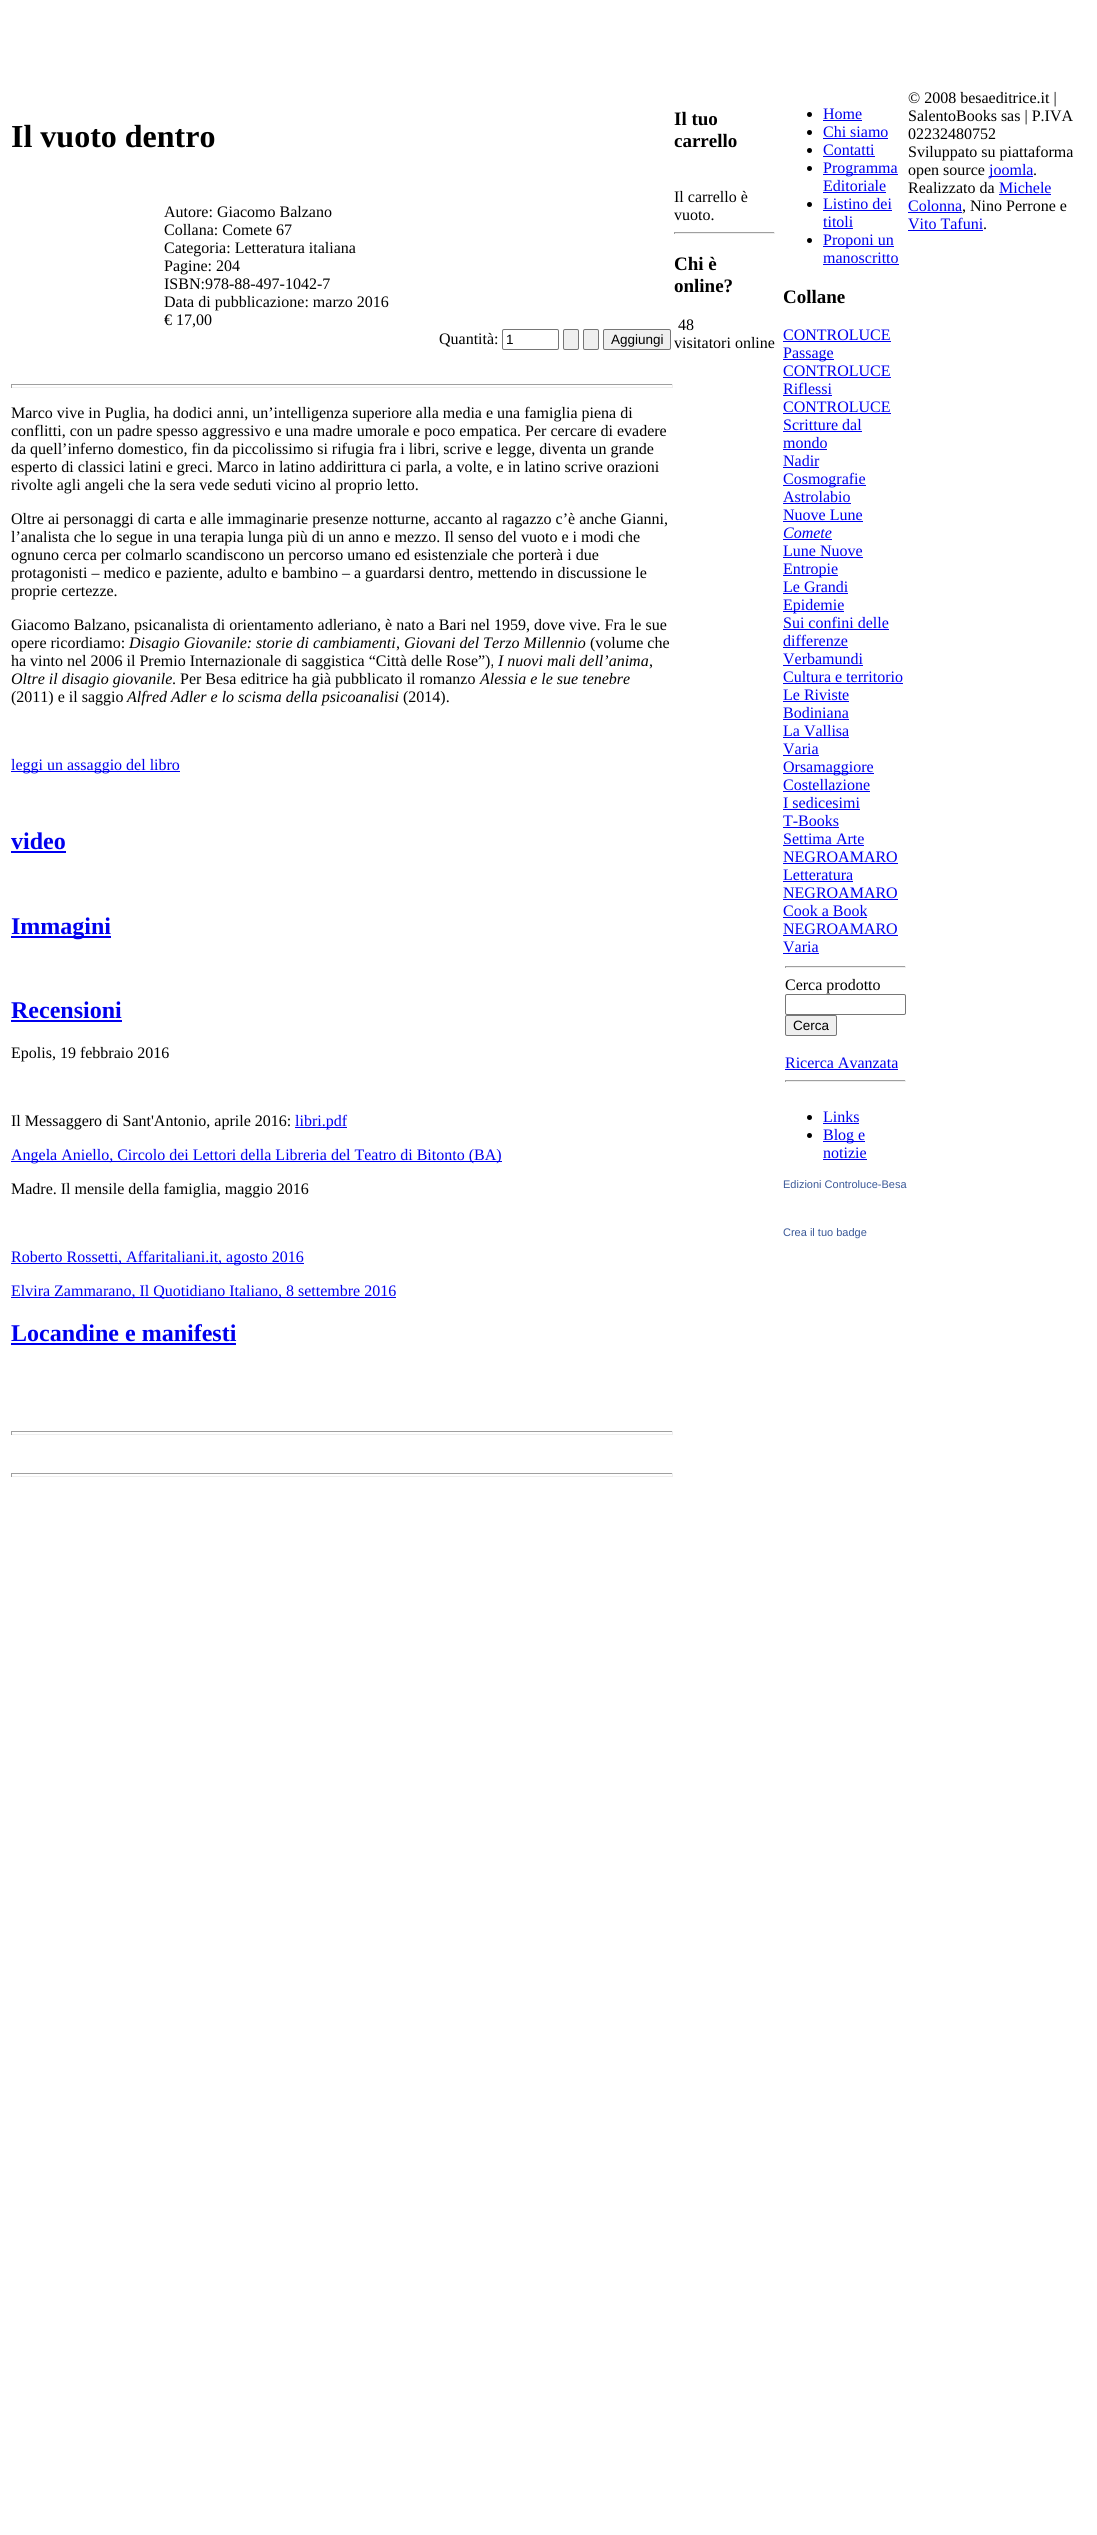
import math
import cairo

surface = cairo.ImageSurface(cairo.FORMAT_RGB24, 1097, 2535)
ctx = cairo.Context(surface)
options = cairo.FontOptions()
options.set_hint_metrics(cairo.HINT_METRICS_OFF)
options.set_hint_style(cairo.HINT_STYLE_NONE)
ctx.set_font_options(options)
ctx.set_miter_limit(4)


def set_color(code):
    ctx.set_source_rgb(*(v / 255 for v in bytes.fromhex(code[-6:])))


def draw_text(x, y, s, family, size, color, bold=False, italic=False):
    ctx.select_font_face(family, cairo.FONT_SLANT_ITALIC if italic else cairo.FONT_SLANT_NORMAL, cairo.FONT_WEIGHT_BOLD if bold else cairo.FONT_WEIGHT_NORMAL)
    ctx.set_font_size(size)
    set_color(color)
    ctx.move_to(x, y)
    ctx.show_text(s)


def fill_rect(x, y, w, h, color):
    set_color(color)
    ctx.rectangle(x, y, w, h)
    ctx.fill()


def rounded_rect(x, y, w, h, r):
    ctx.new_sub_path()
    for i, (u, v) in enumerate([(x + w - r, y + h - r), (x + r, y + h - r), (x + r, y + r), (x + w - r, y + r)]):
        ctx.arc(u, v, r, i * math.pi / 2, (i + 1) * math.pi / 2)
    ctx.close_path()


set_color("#ffffff")
ctx.paint()
draw_text(11, 147, "Il vuoto dentro", "Liberation Serif", 32, "#000000", bold=True)
draw_text(164, 217, "Autore: Giacomo Balzano", "Liberation Serif", 16, "#000000")
draw_text(164, 235, "Collana: Comete 67", "Liberation Serif", 16, "#000000")
draw_text(164, 253, "Categoria: Letteratura italiana", "Liberation Serif", 16, "#000000")
draw_text(164, 271, "Pagine: 204", "Liberation Serif", 16, "#000000")
draw_text(164, 289, "ISBN:978-88-497-1042-7", "Liberation Serif", 16, "#000000")
draw_text(164, 307, "Data di pubblicazione: marzo 2016", "Liberation Serif", 16, "#000000")
draw_text(164, 325, "€ 17,00", "Liberation Serif", 16, "#000000")
draw_text(439, 344, "Quantità:", "Liberation Serif", 16, "#000000")
rounded_rect(502.5, 329.5, 56, 20, 1.5)
set_color("#767676")
ctx.set_line_width(1)
ctx.stroke()
draw_text(506, 344, "1", "Liberation Sans", 13.5, "#000000")
set_color("#efefef")
rounded_rect(563.5, 329.5, 15, 20, 1.5)
ctx.fill_preserve()
set_color("#767676")
ctx.stroke()
set_color("#efefef")
rounded_rect(583.5, 329.5, 15, 20, 1.5)
ctx.fill_preserve()
set_color("#767676")
ctx.stroke()
set_color("#efefef")
rounded_rect(603.5, 329.5, 67, 20, 1.5)
ctx.fill_preserve()
set_color("#767676")
ctx.stroke()
draw_text(611, 344, "Aggiungi", "Liberation Sans", 13.5, "#000000")
fill_rect(11, 384, 662, 1, "#9f9f9f")
fill_rect(672, 384, 1, 4, "#eeeeee")
fill_rect(11, 387, 662, 1, "#eeeeee")
fill_rect(11, 384, 1, 4, "#9f9f9f")
draw_text(11, 418, "Marco vive in Puglia, ha dodici anni, un’intelligenza superiore alla media e una famiglia piena di", "Liberation Serif", 16, "#000000")
draw_text(11, 436, "conflitti, con un padre spesso aggressivo e una madre umorale e poco empatica. Per cercare di evadere", "Liberation Serif", 16, "#000000")
draw_text(11, 454, "da quell’inferno domestico, fin da piccolissimo si rifugia fra i libri, scrive e legge, diventa un grande", "Liberation Serif", 16, "#000000")
draw_text(11, 472, "esperto di classici latini e greci. Marco in latino addirittura ci parla, a volte, e in latino scrive orazioni", "Liberation Serif", 16, "#000000")
draw_text(11, 490, "rivolte agli angeli che la sera vede seduti vicino al proprio letto.", "Liberation Serif", 16, "#000000")
draw_text(11, 524, "Oltre ai personaggi di carta e alle immaginarie presenze notturne, accanto al ragazzo c’è anche Gianni,", "Liberation Serif", 16, "#000000")
draw_text(11, 542, "l’analista che lo segue in una terapia lunga più di un anno e mezzo. Il senso del vuoto e i modi che", "Liberation Serif", 16, "#000000")
draw_text(11, 560, "ognuno cerca per colmarlo scandiscono un percorso umano ed esistenziale che porterà i due", "Liberation Serif", 16, "#000000")
draw_text(11, 578, "protagonisti – medico e paziente, adulto e bambino – a guardarsi dentro, mettendo in discussione le", "Liberation Serif", 16, "#000000")
draw_text(11, 596, "proprie certezze.", "Liberation Serif", 16, "#000000")
draw_text(11, 630, "Giacomo Balzano, psicanalista di orientamento adleriano, è nato a Bari nel 1959, dove vive. Fra le sue", "Liberation Serif", 16, "#000000")
draw_text(11, 648, "opere ricordiamo:", "Liberation Serif", 16, "#000000")
draw_text(129, 648, "Disagio Giovanile: storie di cambiamenti", "Liberation Serif", 16, "#000000", italic=True)
draw_text(396, 648, ",", "Liberation Serif", 16, "#000000")
draw_text(404, 648, "Giovani del Terzo Millennio", "Liberation Serif", 16, "#000000", italic=True)
draw_text(590, 648, "(volume che", "Liberation Serif", 16, "#000000")
draw_text(11, 666, "ha vinto nel 2006 il Premio Internazionale di saggistica “Città delle Rose”),", "Liberation Serif", 16, "#000000")
draw_text(498, 666, "I nuovi mali dell’anima", "Liberation Serif", 16, "#000000", italic=True)
draw_text(649, 666, ",", "Liberation Serif", 16, "#000000")
draw_text(11, 684, "Oltre il disagio giovanile", "Liberation Serif", 16, "#000000", italic=True)
draw_text(172, 684, ". Per Besa editrice ha già pubblicato il romanzo", "Liberation Serif", 16, "#000000")
draw_text(480, 684, "Alessia e le sue tenebre", "Liberation Serif", 16, "#000000", italic=True)
draw_text(11, 702, "(2011) e il saggio", "Liberation Serif", 16, "#000000")
draw_text(127, 702, "Alfred Adler e lo scisma della psicoanalisi", "Liberation Serif", 16, "#000000", italic=True)
draw_text(403, 702, "(2014).", "Liberation Serif", 16, "#000000")
fill_rect(11, 771, 169, 1, "#0000ee")
draw_text(11, 770, "leggi un assaggio del libro", "Liberation Serif", 16, "#0000ee")
draw_text(11, 849, "video", "Liberation Serif", 24, "#0000ee", bold=True)
fill_rect(11, 851, 55, 2, "#0000ee")
fill_rect(11, 936, 100, 2, "#0000ee")
draw_text(11, 934, "Immagini", "Liberation Serif", 24, "#0000ee", bold=True)
draw_text(11, 1018, "Recensioni", "Liberation Serif", 24, "#0000ee", bold=True)
fill_rect(11, 1020, 111, 2, "#0000ee")
draw_text(11, 1058, "Epolis, 19 febbraio 2016", "Liberation Serif", 16, "#000000")
draw_text(11, 1126, "Il Messaggero di Sant'Antonio, aprile 2016:", "Liberation Serif", 16, "#000000")
fill_rect(295, 1127, 52, 1, "#0000ee")
draw_text(295, 1126, "libri.pdf", "Liberation Serif", 16, "#0000ee")
fill_rect(11, 1161, 491, 1, "#0000ee")
draw_text(11, 1160, "Angela Aniello, Circolo dei Lettori della Libreria del Teatro di Bitonto (BA)", "Liberation Serif", 16, "#0000ee")
draw_text(11, 1194, "Madre. Il mensile della famiglia, maggio 2016", "Liberation Serif", 16, "#000000")
fill_rect(11, 1263, 293, 1, "#0000ee")
draw_text(11, 1262, "Roberto Rossetti, Affaritaliani.it, agosto 2016", "Liberation Serif", 16, "#0000ee")
fill_rect(11, 1297, 385, 1, "#0000ee")
draw_text(11, 1296, "Elvira Zammarano, Il Quotidiano Italiano, 8 settembre 2016", "Liberation Serif", 16, "#0000ee")
draw_text(11, 1341, "Locandine e manifesti", "Liberation Serif", 24, "#0000ee", bold=True)
fill_rect(11, 1343, 225, 2, "#0000ee")
fill_rect(11, 1431, 662, 1, "#9f9f9f")
fill_rect(672, 1431, 1, 4, "#eeeeee")
fill_rect(11, 1434, 662, 1, "#eeeeee")
fill_rect(11, 1431, 1, 4, "#9f9f9f")
fill_rect(11, 1473, 662, 1, "#9f9f9f")
fill_rect(672, 1473, 1, 4, "#eeeeee")
fill_rect(11, 1476, 662, 1, "#eeeeee")
fill_rect(11, 1473, 1, 4, "#9f9f9f")
draw_text(674, 125, "Il tuo", "Liberation Serif", 19, "#000000", bold=True)
draw_text(674, 147, "carrello", "Liberation Serif", 19, "#000000", bold=True)
draw_text(674, 202, "Il carrello è", "Liberation Serif", 16, "#000000")
draw_text(674, 220, "vuoto.", "Liberation Serif", 16, "#000000")
fill_rect(674, 232, 101, 1, "#9f9f9f")
fill_rect(774, 232, 1, 2, "#eeeeee")
fill_rect(674, 233, 101, 1, "#eeeeee")
fill_rect(674, 232, 1, 2, "#9f9f9f")
draw_text(674, 270, "Chi è", "Liberation Serif", 19, "#000000", bold=True)
draw_text(674, 292, "online?", "Liberation Serif", 19, "#000000", bold=True)
draw_text(678, 330, "48", "Liberation Serif", 16, "#000000")
draw_text(674, 348, "visitatori online", "Liberation Serif", 16, "#000000")
ctx.new_path()
ctx.arc(809.5, 114.5, 2.5, 0, 2 * math.pi)
ctx.fill()
draw_text(823, 119, "Home", "Liberation Serif", 16, "#0000ee")
fill_rect(823, 120, 39, 1, "#0000ee")
set_color("#000000")
ctx.new_path()
ctx.arc(809.5, 132.5, 2.5, 0, 2 * math.pi)
ctx.fill()
draw_text(823, 137, "Chi siamo", "Liberation Serif", 16, "#0000ee")
fill_rect(823, 138, 65, 1, "#0000ee")
set_color("#000000")
ctx.new_path()
ctx.arc(809.5, 150.5, 2.5, 0, 2 * math.pi)
ctx.fill()
draw_text(823, 155, "Contatti", "Liberation Serif", 16, "#0000ee")
fill_rect(823, 156, 52, 1, "#0000ee")
set_color("#000000")
ctx.new_path()
ctx.arc(809.5, 168.5, 2.5, 0, 2 * math.pi)
ctx.fill()
fill_rect(823, 174, 75, 1, "#0000ee")
draw_text(823, 173, "Programma", "Liberation Serif", 16, "#0000ee")
draw_text(823, 191, "Editoriale", "Liberation Serif", 16, "#0000ee")
fill_rect(823, 192, 63, 1, "#0000ee")
set_color("#000000")
ctx.new_path()
ctx.arc(809.5, 204.5, 2.5, 0, 2 * math.pi)
ctx.fill()
draw_text(823, 209, "Listino dei", "Liberation Serif", 16, "#0000ee")
fill_rect(823, 210, 69, 1, "#0000ee")
draw_text(823, 227, "titoli", "Liberation Serif", 16, "#0000ee")
fill_rect(823, 228, 30, 1, "#0000ee")
set_color("#000000")
ctx.new_path()
ctx.arc(809.5, 240.5, 2.5, 0, 2 * math.pi)
ctx.fill()
fill_rect(823, 246, 71, 1, "#0000ee")
draw_text(823, 245, "Proponi un", "Liberation Serif", 16, "#0000ee")
draw_text(823, 263, "manoscritto", "Liberation Serif", 16, "#0000ee")
fill_rect(823, 264, 76, 1, "#0000ee")
draw_text(783, 303, "Collane", "Liberation Serif", 19, "#000000", bold=True)
draw_text(783, 340, "CONTROLUCE", "Liberation Serif", 16, "#0000ee")
fill_rect(783, 341, 108, 1, "#0000ee")
fill_rect(783, 359, 51, 1, "#0000ee")
draw_text(783, 358, "Passage", "Liberation Serif", 16, "#0000ee")
draw_text(783, 376, "CONTROLUCE", "Liberation Serif", 16, "#0000ee")
fill_rect(783, 377, 108, 1, "#0000ee")
draw_text(783, 394, "Riflessi", "Liberation Serif", 16, "#0000ee")
fill_rect(783, 395, 49, 1, "#0000ee")
draw_text(783, 412, "CONTROLUCE", "Liberation Serif", 16, "#0000ee")
fill_rect(783, 413, 108, 1, "#0000ee")
draw_text(783, 430, "Scritture dal", "Liberation Serif", 16, "#0000ee")
fill_rect(783, 431, 79, 1, "#0000ee")
draw_text(783, 448, "mondo", "Liberation Serif", 16, "#0000ee")
fill_rect(783, 449, 44, 1, "#0000ee")
draw_text(783, 466, "Nadir", "Liberation Serif", 16, "#0000ee")
fill_rect(783, 467, 36, 1, "#0000ee")
fill_rect(783, 485, 83, 1, "#0000ee")
draw_text(783, 484, "Cosmografie", "Liberation Serif", 16, "#0000ee")
draw_text(783, 502, "Astrolabio", "Liberation Serif", 16, "#0000ee")
fill_rect(783, 503, 68, 1, "#0000ee")
draw_text(783, 520, "Nuove Lune", "Liberation Serif", 16, "#0000ee")
fill_rect(783, 521, 80, 1, "#0000ee")
draw_text(783, 538, "Comete", "Liberation Serif", 16, "#0000ee", italic=True)
fill_rect(783, 539, 49, 1, "#0000ee")
draw_text(783, 556, "Lune Nuove", "Liberation Serif", 16, "#0000ee")
fill_rect(783, 557, 80, 1, "#0000ee")
fill_rect(783, 575, 55, 1, "#0000ee")
draw_text(783, 574, "Entropie", "Liberation Serif", 16, "#0000ee")
draw_text(783, 592, "Le Grandi", "Liberation Serif", 16, "#0000ee")
fill_rect(783, 593, 65, 1, "#0000ee")
fill_rect(783, 611, 61, 1, "#0000ee")
draw_text(783, 610, "Epidemie", "Liberation Serif", 16, "#0000ee")
draw_text(783, 628, "Sui confini delle", "Liberation Serif", 16, "#0000ee")
fill_rect(783, 629, 106, 1, "#0000ee")
draw_text(783, 646, "differenze", "Liberation Serif", 16, "#0000ee")
fill_rect(783, 647, 65, 1, "#0000ee")
draw_text(783, 664, "Verbamundi", "Liberation Serif", 16, "#0000ee")
fill_rect(783, 665, 80, 1, "#0000ee")
draw_text(783, 682, "Cultura e territorio", "Liberation Serif", 16, "#0000ee")
fill_rect(783, 683, 120, 1, "#0000ee")
draw_text(783, 700, "Le Riviste", "Liberation Serif", 16, "#0000ee")
fill_rect(783, 701, 66, 1, "#0000ee")
draw_text(783, 718, "Bodiniana", "Liberation Serif", 16, "#0000ee")
fill_rect(783, 719, 66, 1, "#0000ee")
draw_text(783, 736, "La Vallisa", "Liberation Serif", 16, "#0000ee")
fill_rect(783, 737, 66, 1, "#0000ee")
draw_text(783, 754, "Varia", "Liberation Serif", 16, "#0000ee")
fill_rect(783, 755, 36, 1, "#0000ee")
fill_rect(783, 773, 91, 1, "#0000ee")
draw_text(783, 772, "Orsamaggiore", "Liberation Serif", 16, "#0000ee")
draw_text(783, 790, "Costellazione", "Liberation Serif", 16, "#0000ee")
fill_rect(783, 791, 87, 1, "#0000ee")
draw_text(783, 808, "I sedicesimi", "Liberation Serif", 16, "#0000ee")
fill_rect(783, 809, 77, 1, "#0000ee")
draw_text(783, 826, "T-Books", "Liberation Serif", 16, "#0000ee")
fill_rect(783, 827, 56, 1, "#0000ee")
draw_text(783, 844, "Settima Arte", "Liberation Serif", 16, "#0000ee")
fill_rect(783, 845, 81, 1, "#0000ee")
draw_text(783, 862, "NEGROAMARO", "Liberation Serif", 16, "#0000ee")
fill_rect(783, 863, 115, 1, "#0000ee")
draw_text(783, 880, "Letteratura", "Liberation Serif", 16, "#0000ee")
fill_rect(783, 881, 70, 1, "#0000ee")
draw_text(783, 898, "NEGROAMARO", "Liberation Serif", 16, "#0000ee")
fill_rect(783, 899, 115, 1, "#0000ee")
draw_text(783, 916, "Cook a Book", "Liberation Serif", 16, "#0000ee")
fill_rect(783, 917, 84, 1, "#0000ee")
draw_text(783, 934, "NEGROAMARO", "Liberation Serif", 16, "#0000ee")
fill_rect(783, 935, 115, 1, "#0000ee")
draw_text(783, 952, "Varia", "Liberation Serif", 16, "#0000ee")
fill_rect(783, 953, 36, 1, "#0000ee")
fill_rect(785, 966, 121, 1, "#9f9f9f")
fill_rect(905, 966, 1, 2, "#eeeeee")
fill_rect(785, 967, 121, 1, "#eeeeee")
fill_rect(785, 966, 1, 2, "#9f9f9f")
draw_text(785, 990, "Cerca prodotto", "Liberation Serif", 16, "#000000")
rounded_rect(785.5, 994.5, 120, 20, 1.5)
set_color("#767676")
ctx.stroke()
set_color("#efefef")
rounded_rect(785.5, 1015.5, 51, 20, 1.5)
ctx.fill_preserve()
set_color("#767676")
ctx.stroke()
draw_text(793, 1030, "Cerca", "Liberation Sans", 13.5, "#000000")
draw_text(785, 1068, "Ricerca Avanzata", "Liberation Serif", 16, "#0000ee")
fill_rect(785, 1069, 113, 1, "#0000ee")
fill_rect(785, 1080, 121, 1, "#9f9f9f")
fill_rect(905, 1080, 1, 2, "#eeeeee")
fill_rect(785, 1081, 121, 1, "#eeeeee")
fill_rect(785, 1080, 1, 2, "#9f9f9f")
set_color("#000000")
ctx.new_path()
ctx.arc(809.5, 1117.5, 2.5, 0, 2 * math.pi)
ctx.fill()
draw_text(823, 1122, "Links", "Liberation Serif", 16, "#0000ee")
fill_rect(823, 1123, 36, 1, "#0000ee")
set_color("#000000")
ctx.new_path()
ctx.arc(809.5, 1135.5, 2.5, 0, 2 * math.pi)
ctx.fill()
fill_rect(823, 1141, 42, 1, "#0000ee")
draw_text(823, 1140, "Blog e", "Liberation Serif", 16, "#0000ee")
draw_text(823, 1158, "notizie", "Liberation Serif", 16, "#0000ee")
fill_rect(823, 1159, 44, 1, "#0000ee")
draw_text(783, 1188, "Edizioni Controluce-Besa", "Liberation Sans", 11, "#3b5998")
draw_text(783, 1236, "Crea il tuo badge", "Liberation Sans", 11, "#3b5998")
draw_text(908, 103, "© 2008 besaeditrice.it |", "Liberation Serif", 16, "#000000")
draw_text(908, 121, "SalentoBooks sas | P.IVA", "Liberation Serif", 16, "#000000")
draw_text(908, 139, "02232480752", "Liberation Serif", 16, "#000000")
draw_text(908, 157, "Sviluppato su piattaforma", "Liberation Serif", 16, "#000000")
draw_text(908, 175, "open source", "Liberation Serif", 16, "#000000")
fill_rect(989, 176, 44, 1, "#0000ee")
draw_text(989, 175, "joomla", "Liberation Serif", 16, "#0000ee")
draw_text(1033, 175, ".", "Liberation Serif", 16, "#000000")
draw_text(908, 193, "Realizzato da", "Liberation Serif", 16, "#000000")
draw_text(999, 193, "Michele", "Liberation Serif", 16, "#0000ee")
fill_rect(999, 194, 52, 1, "#0000ee")
draw_text(908, 211, "Colonna", "Liberation Serif", 16, "#0000ee")
fill_rect(908, 212, 54, 1, "#0000ee")
draw_text(962, 211, ", Nino Perrone e", "Liberation Serif", 16, "#000000")
draw_text(908, 229, "Vito Tafuni", "Liberation Serif", 16, "#0000ee")
fill_rect(908, 230, 75, 1, "#0000ee")
draw_text(983, 229, ".", "Liberation Serif", 16, "#000000")
surface.write_to_png("output.png")
